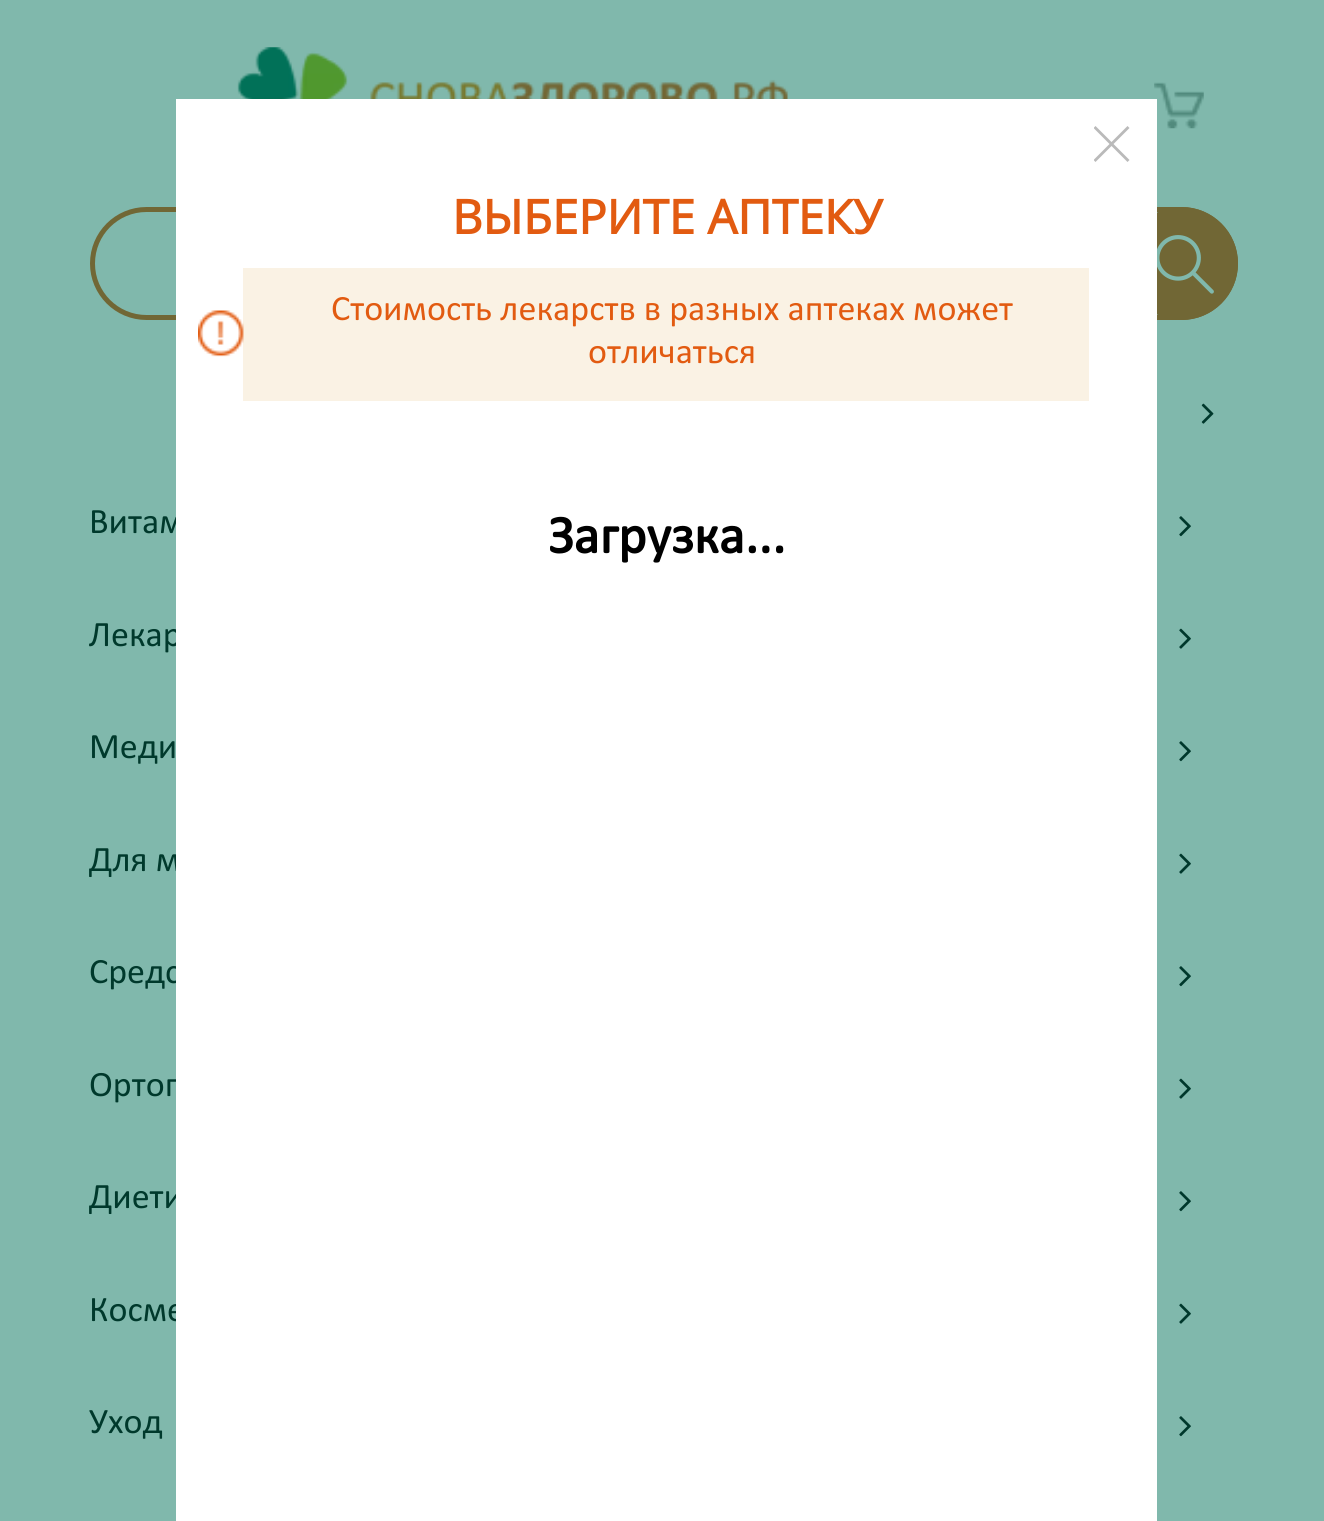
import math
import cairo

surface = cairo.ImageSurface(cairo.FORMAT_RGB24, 1324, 1521)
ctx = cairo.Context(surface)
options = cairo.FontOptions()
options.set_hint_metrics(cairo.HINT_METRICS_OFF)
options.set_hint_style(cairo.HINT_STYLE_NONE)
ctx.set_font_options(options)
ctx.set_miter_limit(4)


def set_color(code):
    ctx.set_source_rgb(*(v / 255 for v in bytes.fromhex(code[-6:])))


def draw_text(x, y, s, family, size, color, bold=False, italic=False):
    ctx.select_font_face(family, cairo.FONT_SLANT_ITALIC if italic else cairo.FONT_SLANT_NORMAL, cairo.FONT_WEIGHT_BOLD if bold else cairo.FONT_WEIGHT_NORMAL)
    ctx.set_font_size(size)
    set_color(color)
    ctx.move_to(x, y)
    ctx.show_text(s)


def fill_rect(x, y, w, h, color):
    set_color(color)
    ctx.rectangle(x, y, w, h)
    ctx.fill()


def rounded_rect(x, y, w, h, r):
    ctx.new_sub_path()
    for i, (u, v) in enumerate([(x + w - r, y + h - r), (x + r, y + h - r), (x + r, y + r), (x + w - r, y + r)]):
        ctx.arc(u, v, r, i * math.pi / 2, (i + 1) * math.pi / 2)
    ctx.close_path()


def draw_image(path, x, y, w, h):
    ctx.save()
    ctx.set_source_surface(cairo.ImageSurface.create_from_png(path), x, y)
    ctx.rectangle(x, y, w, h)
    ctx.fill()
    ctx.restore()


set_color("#80b8ac")
ctx.paint()
draw_image("assets/img3.png", 1154, 82, 50, 47)
rounded_rect(92.5, 209.5, 1143, 108, 54)
set_color("#716735")
ctx.set_line_width(5)
ctx.stroke()
ctx.arc(1181.5, 263.5, 56.5, 0, 2 * math.pi)
ctx.fill()
draw_text(89, 533, "Витам", "Calibri", 36, "#00392c")
draw_text(89, 646, "Лекар", "Calibri", 36, "#00392c")
draw_text(89, 871, "Для м", "Calibri", 36, "#00392c")
draw_text(89, 983, "Средс", "Calibri", 36, "#00392c")
draw_text(89, 1096, "Ортоп", "Calibri", 36, "#00392c")
draw_text(89, 1208, "Диети", "Calibri", 36, "#00392c")
draw_text(89, 1321, "Косме", "Calibri", 36, "#00392c")
fill_rect(176, 99, 981, 1422, "#ffffff")
ctx.save()
ctx.rectangle(1094, 126, 36, 36)
ctx.clip()
set_color("#bababa")
ctx.set_fill_rule(cairo.FILL_RULE_EVEN_ODD)
ctx.new_path()
ctx.move_to(1129.5, 160)
ctx.line_to(1113.5, 144)
ctx.line_to(1129.5, 128)
ctx.line_to(1127.5, 126)
ctx.line_to(1111.5, 142)
ctx.line_to(1095.5, 126)
ctx.line_to(1093.5, 128)
ctx.line_to(1109.5, 144)
ctx.line_to(1093.5, 160)
ctx.line_to(1095.5, 162)
ctx.line_to(1111.5, 146)
ctx.line_to(1127.5, 162)
ctx.close_path()
ctx.fill()
ctx.restore()
draw_text(452, 234, "ВЫБЕРИТЕ АПТЕКУ", "Open Sans", 47.25, "#e25b11", bold=True)
fill_rect(243, 268, 846, 133, "#faf2e4")
draw_image("assets/img1.png", 198, 310, 46, 47)
draw_text(331, 320, "Стоимость лекарств в разных аптеках может", "Calibri", 36, "#e25b11")
draw_text(588, 363, "отличаться", "Calibri", 36, "#e25b11")
draw_text(548, 553, "Загрузка...", "Calibri", 54, "#000000", bold=True)
draw_image("assets/img2.png", 237, 47, 551, 52)
draw_image("assets/img4.png", 1157, 235, 57, 59)
draw_image("assets/img5.png", 1201, 403, 13, 21)
draw_image("assets/img6.png", 1179, 516, 12, 21)
draw_image("assets/img7.png", 1179, 628, 12, 21)
draw_text(89, 758, "Меди", "Calibri", 36, "#00392c")
draw_image("assets/img6.png", 1179, 741, 12, 21)
draw_image("assets/img7.png", 1179, 853, 12, 21)
draw_image("assets/img6.png", 1179, 966, 12, 21)
draw_image("assets/img7.png", 1179, 1078, 12, 21)
draw_image("assets/img6.png", 1179, 1191, 12, 21)
draw_image("assets/img7.png", 1179, 1303, 12, 21)
draw_text(89, 1433, "Уход", "Calibri", 36, "#00392c")
draw_image("assets/img6.png", 1179, 1416, 12, 21)
surface.write_to_png("output.png")
